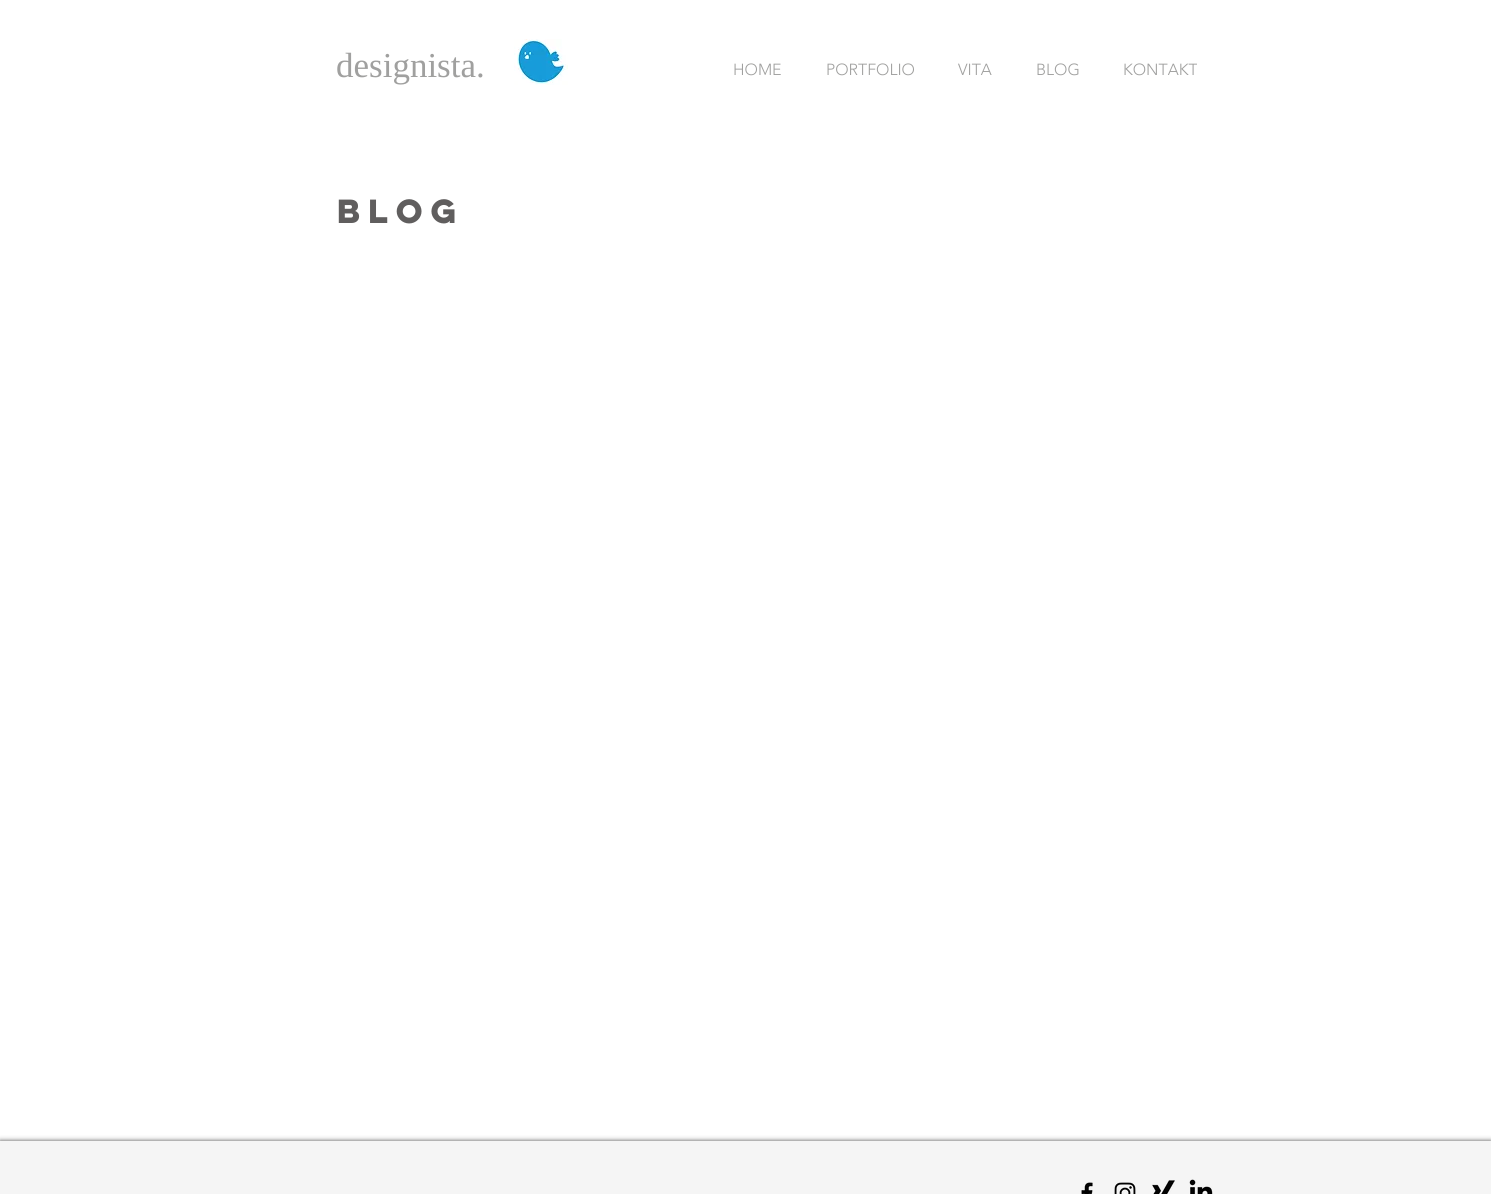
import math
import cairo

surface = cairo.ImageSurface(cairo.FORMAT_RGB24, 1491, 1194)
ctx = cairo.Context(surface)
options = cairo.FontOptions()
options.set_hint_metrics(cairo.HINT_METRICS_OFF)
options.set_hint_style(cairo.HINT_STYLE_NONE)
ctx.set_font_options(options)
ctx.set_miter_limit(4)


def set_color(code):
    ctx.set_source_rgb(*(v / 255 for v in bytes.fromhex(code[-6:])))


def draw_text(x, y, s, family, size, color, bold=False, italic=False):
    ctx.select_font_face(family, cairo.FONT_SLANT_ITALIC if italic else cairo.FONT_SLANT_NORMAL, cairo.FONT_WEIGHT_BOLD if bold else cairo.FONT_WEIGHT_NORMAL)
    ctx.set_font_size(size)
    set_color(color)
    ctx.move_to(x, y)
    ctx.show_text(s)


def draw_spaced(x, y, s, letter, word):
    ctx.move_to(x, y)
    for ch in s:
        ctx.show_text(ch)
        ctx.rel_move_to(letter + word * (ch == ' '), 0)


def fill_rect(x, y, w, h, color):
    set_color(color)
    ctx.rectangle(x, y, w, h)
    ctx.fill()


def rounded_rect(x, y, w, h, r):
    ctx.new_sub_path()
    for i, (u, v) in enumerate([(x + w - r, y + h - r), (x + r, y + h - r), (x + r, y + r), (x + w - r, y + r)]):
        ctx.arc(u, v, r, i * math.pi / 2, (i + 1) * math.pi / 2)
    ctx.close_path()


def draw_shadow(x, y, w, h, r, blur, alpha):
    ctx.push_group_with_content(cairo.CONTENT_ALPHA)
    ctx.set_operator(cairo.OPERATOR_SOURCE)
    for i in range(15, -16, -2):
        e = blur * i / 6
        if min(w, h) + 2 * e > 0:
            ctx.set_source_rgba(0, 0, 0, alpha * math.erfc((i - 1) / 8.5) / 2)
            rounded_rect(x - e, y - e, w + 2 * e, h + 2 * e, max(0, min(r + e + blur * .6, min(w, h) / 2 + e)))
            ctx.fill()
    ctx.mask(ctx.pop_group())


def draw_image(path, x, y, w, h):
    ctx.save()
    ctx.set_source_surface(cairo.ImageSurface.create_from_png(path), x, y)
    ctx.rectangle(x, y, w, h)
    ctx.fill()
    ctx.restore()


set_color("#ffffff")
ctx.paint()
draw_text(336, 77, "designista.", "Liberation Serif", 35, "#a0a09f")
draw_image("assets/img1.png", 514, 39, 54, 46)
draw_text(733, 75, "HOME", "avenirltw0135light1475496 Light", 16, "#a0a09f")
draw_text(826, 75, "PORTFOLIO", "avenirltw0135light1475496 Light", 16, "#a0a09f")
draw_text(958, 75, "VITA", "avenirltw0135light1475496 Light", 16, "#a0a09f")
draw_text(1036, 75, "BLOG", "avenirltw0135light1475496 Light", 16, "#a0a09f")
draw_text(1123, 75, "KONTAKT", "avenirltw0135light1475496 Light", 16, "#a0a09f")
ctx.select_font_face("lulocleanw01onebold", cairo.FONT_SLANT_NORMAL, cairo.FONT_WEIGHT_BOLD)
ctx.set_font_size(30)
set_color("#605e5e")
draw_spaced(337, 223, "BLOG", 1.5, 0)
set_color("#000000")
draw_shadow(0, 1141, 1491, 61, 0, 2.5, 0.7)
fill_rect(0, 1141, 1491, 53, "#f5f5f5")
draw_image("assets/img2.png", 1081, 1182, 12, 12)
draw_image("assets/img3.png", 1114, 1182, 22, 12)
draw_image("assets/img4.png", 1152, 1180, 23, 14)
draw_image("assets/img5.png", 1189, 1179, 24, 15)
surface.write_to_png("output.png")
